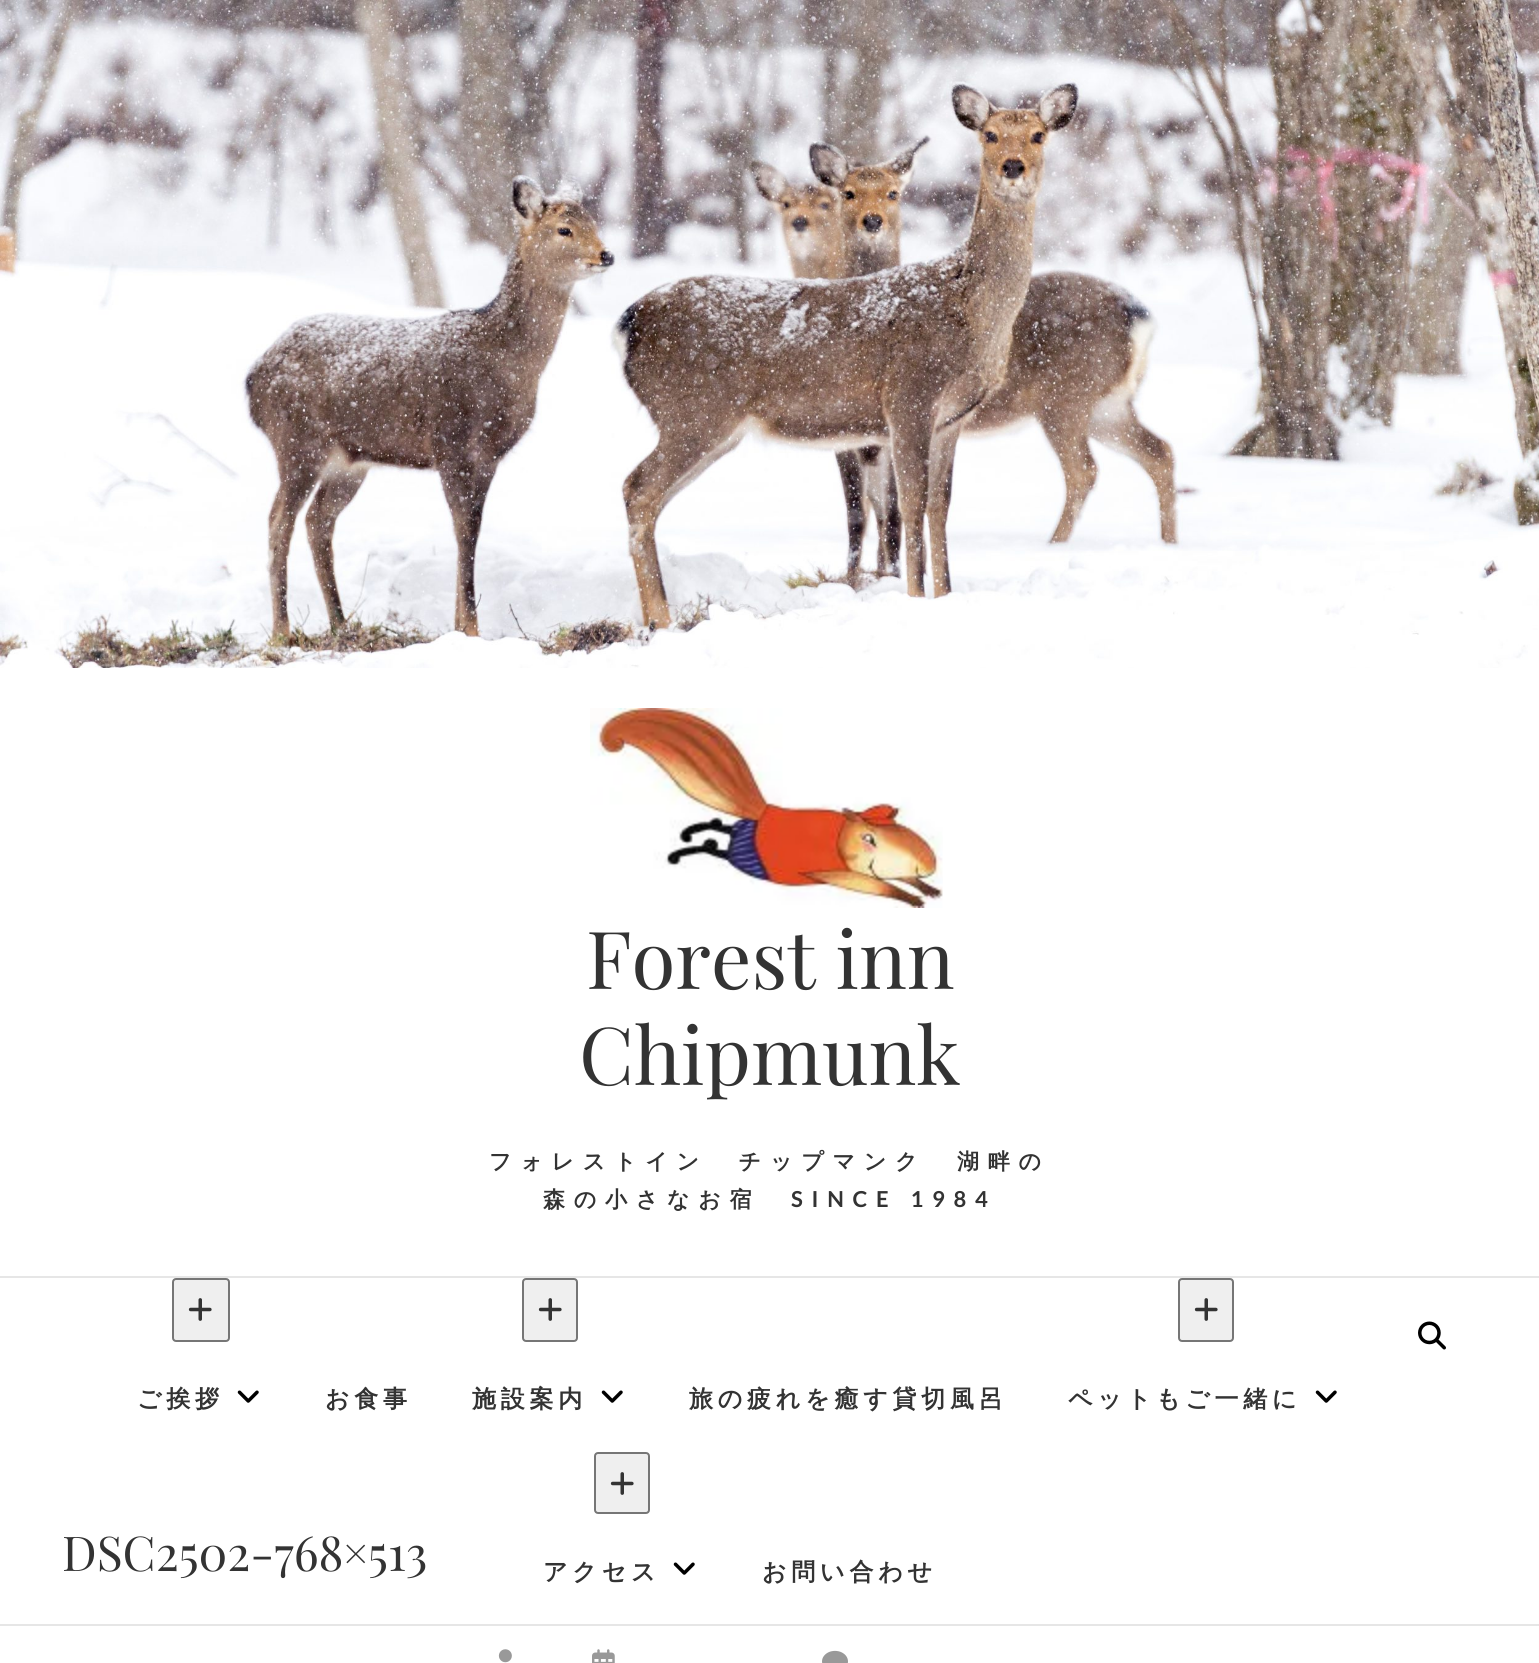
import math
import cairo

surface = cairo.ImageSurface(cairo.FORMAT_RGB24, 1539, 1663)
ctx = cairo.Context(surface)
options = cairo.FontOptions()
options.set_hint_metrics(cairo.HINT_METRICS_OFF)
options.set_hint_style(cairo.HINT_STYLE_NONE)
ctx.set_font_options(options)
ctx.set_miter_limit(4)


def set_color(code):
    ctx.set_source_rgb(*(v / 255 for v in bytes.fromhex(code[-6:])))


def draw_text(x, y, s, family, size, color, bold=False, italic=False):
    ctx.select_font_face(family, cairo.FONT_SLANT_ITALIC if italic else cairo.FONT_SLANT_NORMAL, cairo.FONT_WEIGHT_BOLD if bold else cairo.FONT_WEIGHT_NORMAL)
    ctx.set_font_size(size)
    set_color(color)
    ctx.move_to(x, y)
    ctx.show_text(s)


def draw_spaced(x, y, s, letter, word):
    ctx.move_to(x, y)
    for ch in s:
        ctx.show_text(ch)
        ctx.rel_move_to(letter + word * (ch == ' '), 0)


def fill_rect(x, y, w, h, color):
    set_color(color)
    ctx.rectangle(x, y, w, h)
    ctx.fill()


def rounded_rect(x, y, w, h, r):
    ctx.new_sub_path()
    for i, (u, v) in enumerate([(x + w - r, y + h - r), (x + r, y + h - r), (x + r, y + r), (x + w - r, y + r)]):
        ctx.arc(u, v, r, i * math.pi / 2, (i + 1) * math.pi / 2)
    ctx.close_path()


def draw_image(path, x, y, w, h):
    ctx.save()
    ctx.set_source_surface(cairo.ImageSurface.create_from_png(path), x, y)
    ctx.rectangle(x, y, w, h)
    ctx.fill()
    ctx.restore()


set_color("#ffffff")
ctx.paint()
draw_image("assets/img1.png", 0, 0, 1539, 668)
fill_rect(0, 1276, 1539, 2, "#e6e6e6")
draw_image("assets/img2.png", 590, 708, 353, 200)
draw_text(586, 989, "Forest inn", "Playfair Display", 80, "#333333")
draw_text(579, 1085, "Chipmunk", "Playfair Display", 80, "#333333")
ctx.select_font_face("WenQuanYi Zen Hei", cairo.FONT_SLANT_NORMAL, cairo.FONT_WEIGHT_BOLD)
ctx.set_font_size(22)
draw_spaced(489, 1169, "フォレストイン　チップマンク　湖畔の", 8.75, 0)
draw_spaced(543, 1207, "森の小さなお宿", 8.75, 0)
ctx.select_font_face("Lato", cairo.FONT_SLANT_NORMAL, cairo.FONT_WEIGHT_BOLD)
draw_spaced(791, 1207, "SINCE 1984", 8.75, 0)
fill_rect(0, 1624, 1539, 2, "#e6e6e6")
draw_image("assets/img3.png", 1418, 1321, 28, 29)
set_color("#efefef")
rounded_rect(173, 1279, 56, 62, 3)
ctx.fill_preserve()
set_color("#767676")
ctx.stroke()
draw_image("assets/img4.png", 188, 1298, 24, 23)
ctx.select_font_face("WenQuanYi Zen Hei", cairo.FONT_SLANT_NORMAL, cairo.FONT_WEIGHT_BOLD)
ctx.set_font_size(24)
set_color("#333333")
draw_spaced(137, 1407, "ご挨拶", 4.75, 0)
draw_image("assets/img5.png", 237, 1390, 22, 13)
draw_spaced(325, 1407, "お食事", 4.75, 0)
set_color("#efefef")
rounded_rect(523, 1279, 54, 62, 3)
ctx.fill_preserve()
set_color("#767676")
ctx.stroke()
draw_image("assets/img4.png", 538, 1298, 24, 23)
set_color("#333333")
draw_spaced(472, 1407, "施設案内", 4.75, 0)
draw_image("assets/img5.png", 601, 1390, 22, 13)
draw_spaced(689, 1407, "旅の疲れを癒す貸切風呂", 4.75, 0)
set_color("#efefef")
rounded_rect(1179, 1279, 54, 62, 3)
ctx.fill_preserve()
set_color("#767676")
ctx.stroke()
draw_image("assets/img4.png", 1194, 1298, 24, 23)
set_color("#333333")
draw_spaced(1068, 1407, "ペットもご一緒に", 4.75, 0)
draw_image("assets/img5.png", 1315, 1390, 22, 13)
set_color("#efefef")
rounded_rect(595, 1453, 54, 60, 3)
ctx.fill_preserve()
set_color("#767676")
ctx.stroke()
draw_image("assets/img4.png", 610, 1472, 24, 23)
set_color("#333333")
draw_spaced(543, 1580, "アクセス", 4.75, 0)
draw_image("assets/img5.png", 673, 1562, 22, 13)
draw_spaced(762, 1580, "お問い合わせ", 4.75, 0)
draw_text(62, 1571, "DSC2502-768×513", "Playfair Display", 48, "#333333")
draw_image("assets/img6.png", 498, 1649, 14, 14)
draw_image("assets/img7.png", 592, 1649, 23, 14)
draw_image("assets/img8.png", 822, 1650, 26, 13)
surface.write_to_png("output.png")
